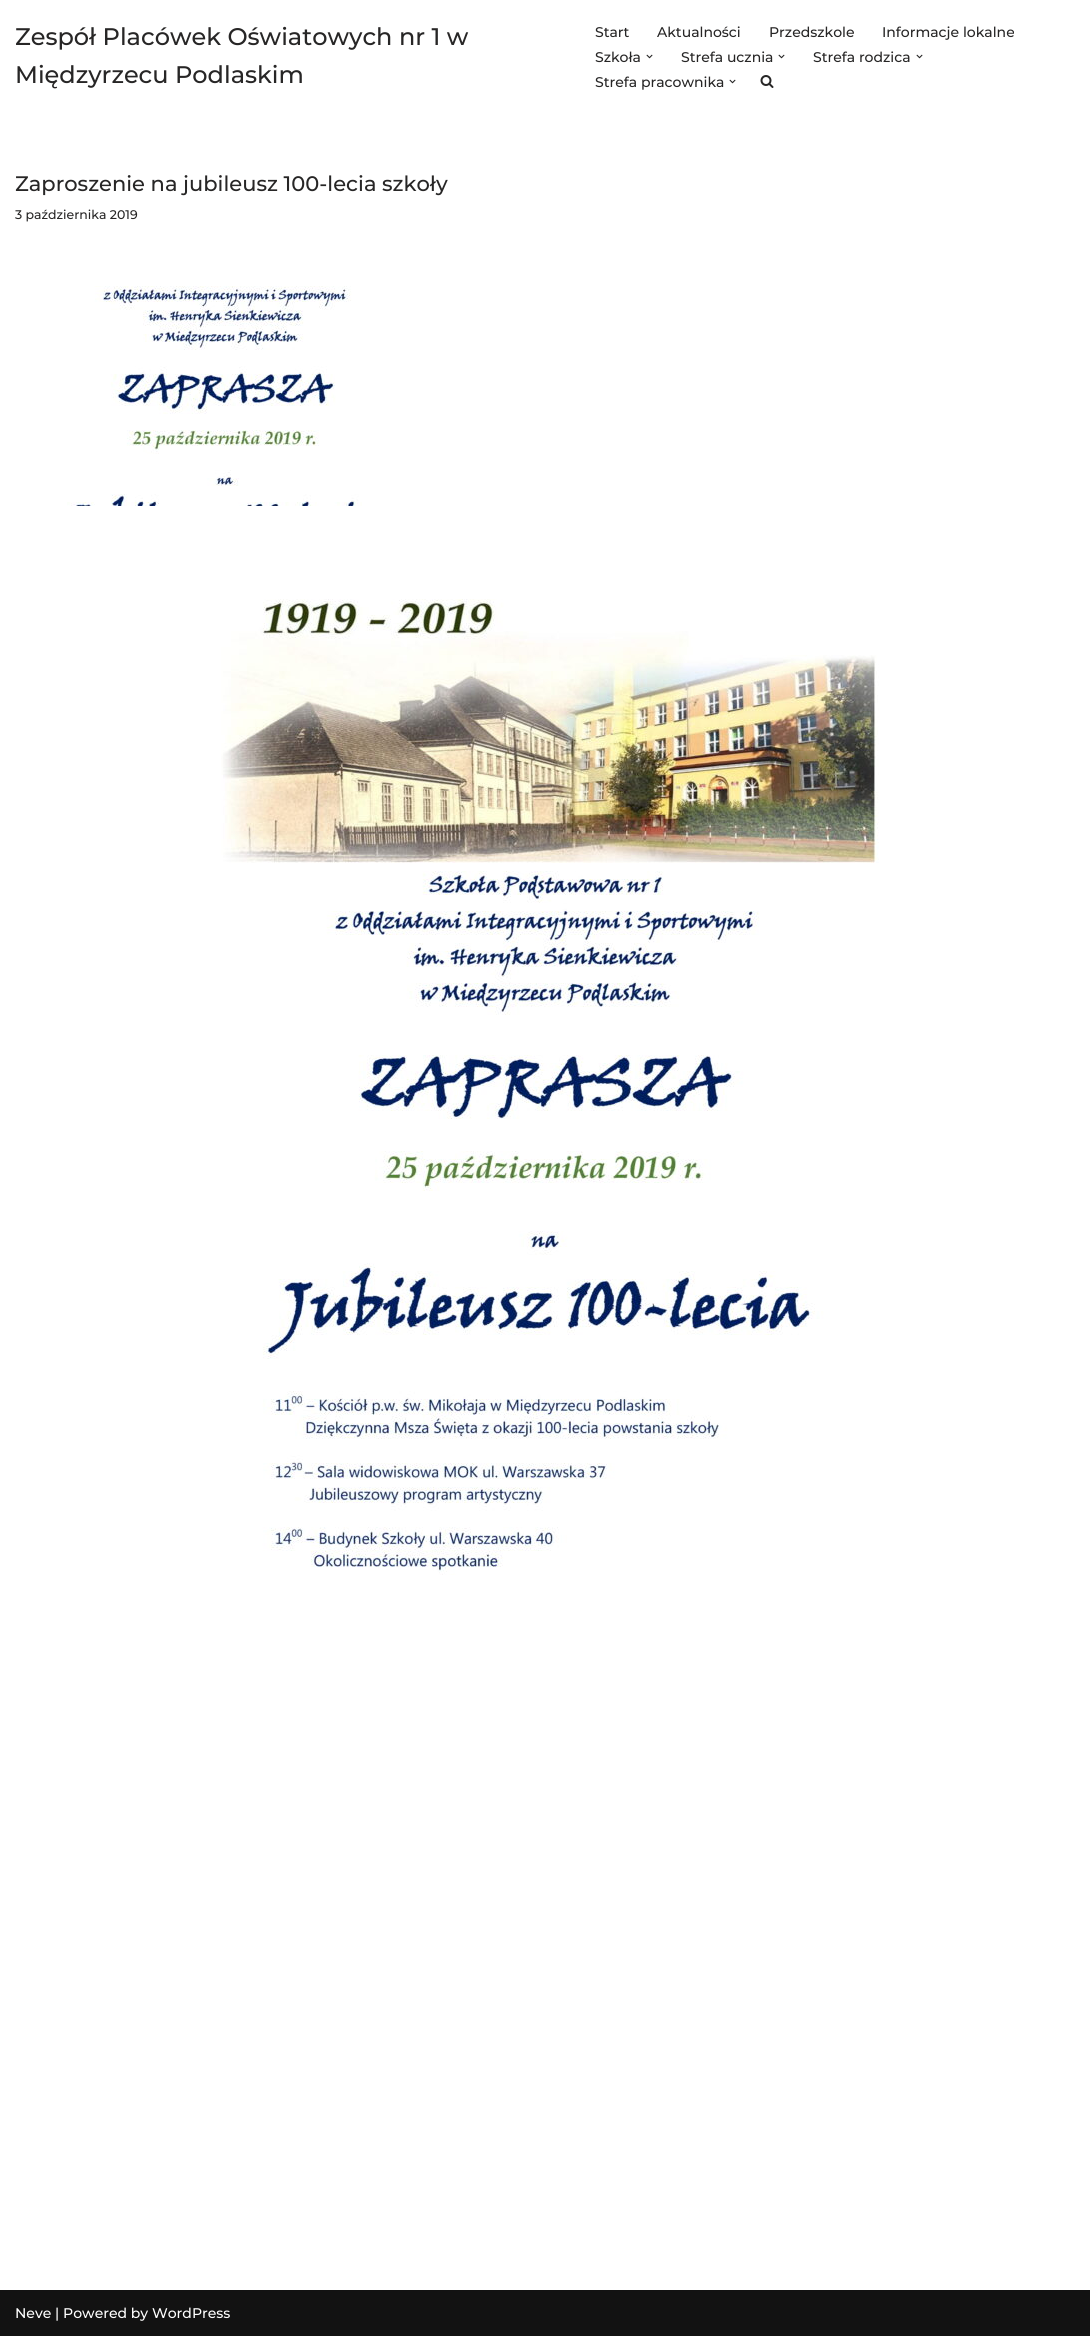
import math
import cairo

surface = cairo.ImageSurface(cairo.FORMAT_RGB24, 1090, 2336)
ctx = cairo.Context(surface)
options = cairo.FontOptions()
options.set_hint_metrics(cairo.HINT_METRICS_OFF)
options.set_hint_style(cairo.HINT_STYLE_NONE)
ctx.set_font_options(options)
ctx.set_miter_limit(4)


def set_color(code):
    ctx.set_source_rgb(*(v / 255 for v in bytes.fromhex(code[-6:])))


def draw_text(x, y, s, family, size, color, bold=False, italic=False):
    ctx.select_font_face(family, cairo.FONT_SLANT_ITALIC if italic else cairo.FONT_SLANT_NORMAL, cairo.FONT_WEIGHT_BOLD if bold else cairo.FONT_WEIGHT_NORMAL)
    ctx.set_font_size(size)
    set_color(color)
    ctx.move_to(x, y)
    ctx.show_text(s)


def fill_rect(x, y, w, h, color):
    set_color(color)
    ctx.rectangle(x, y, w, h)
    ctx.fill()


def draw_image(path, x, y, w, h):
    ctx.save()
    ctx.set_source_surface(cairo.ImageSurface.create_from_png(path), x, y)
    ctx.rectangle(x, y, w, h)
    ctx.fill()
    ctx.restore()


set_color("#ffffff")
ctx.paint()
draw_text(15, 45, "Zespół Placówek Oświatowych nr 1 w", "Montserrat Medium", 24, "#272626")
draw_text(15, 83, "Międzyrzecu Podlaskim", "Montserrat Medium", 24, "#272626")
draw_text(595, 37, "Start", "Montserrat Medium", 14, "#272626")
draw_text(657, 37, "Aktualności", "Montserrat Medium", 14, "#272626")
draw_text(769, 37, "Przedszkole", "Montserrat Medium", 14, "#272626")
draw_text(882, 37, "Informacje lokalne", "Montserrat Medium", 14, "#272626")
draw_text(595, 62, "Szkoła", "Montserrat Medium", 14, "#272626")
draw_image("assets/img1.png", 646, 54, 7, 5)
draw_text(681, 62, "Strefa ucznia", "Montserrat Medium", 14, "#272626")
draw_image("assets/img1.png", 778, 54, 7, 5)
draw_text(813, 62, "Strefa rodzica", "Montserrat Medium", 14, "#272626")
draw_image("assets/img1.png", 916, 54, 7, 5)
draw_text(595, 87, "Strefa pracownika", "Montserrat Medium", 14, "#272626")
draw_image("assets/img1.png", 729, 79, 7, 5)
draw_image("assets/img2.png", 760, 75, 14, 13)
draw_text(15, 191, "Zaproszenie na jubileusz 100-lecia szkoły", "Montserrat Medium", 21, "#272626")
draw_text(15, 219, "3 października 2019", "Montserrat Medium", 12.5, "#272626")
draw_image("assets/img3.png", 67, 286, 295, 220)
draw_image("assets/img4.png", 221, 599, 658, 976)
fill_rect(0, 2290, 1090, 46, "#121212")
draw_text(15, 2318, "Neve | Powered by WordPress", "Montserrat Medium", 14, "#ffffff")
surface.write_to_png("output.png")
